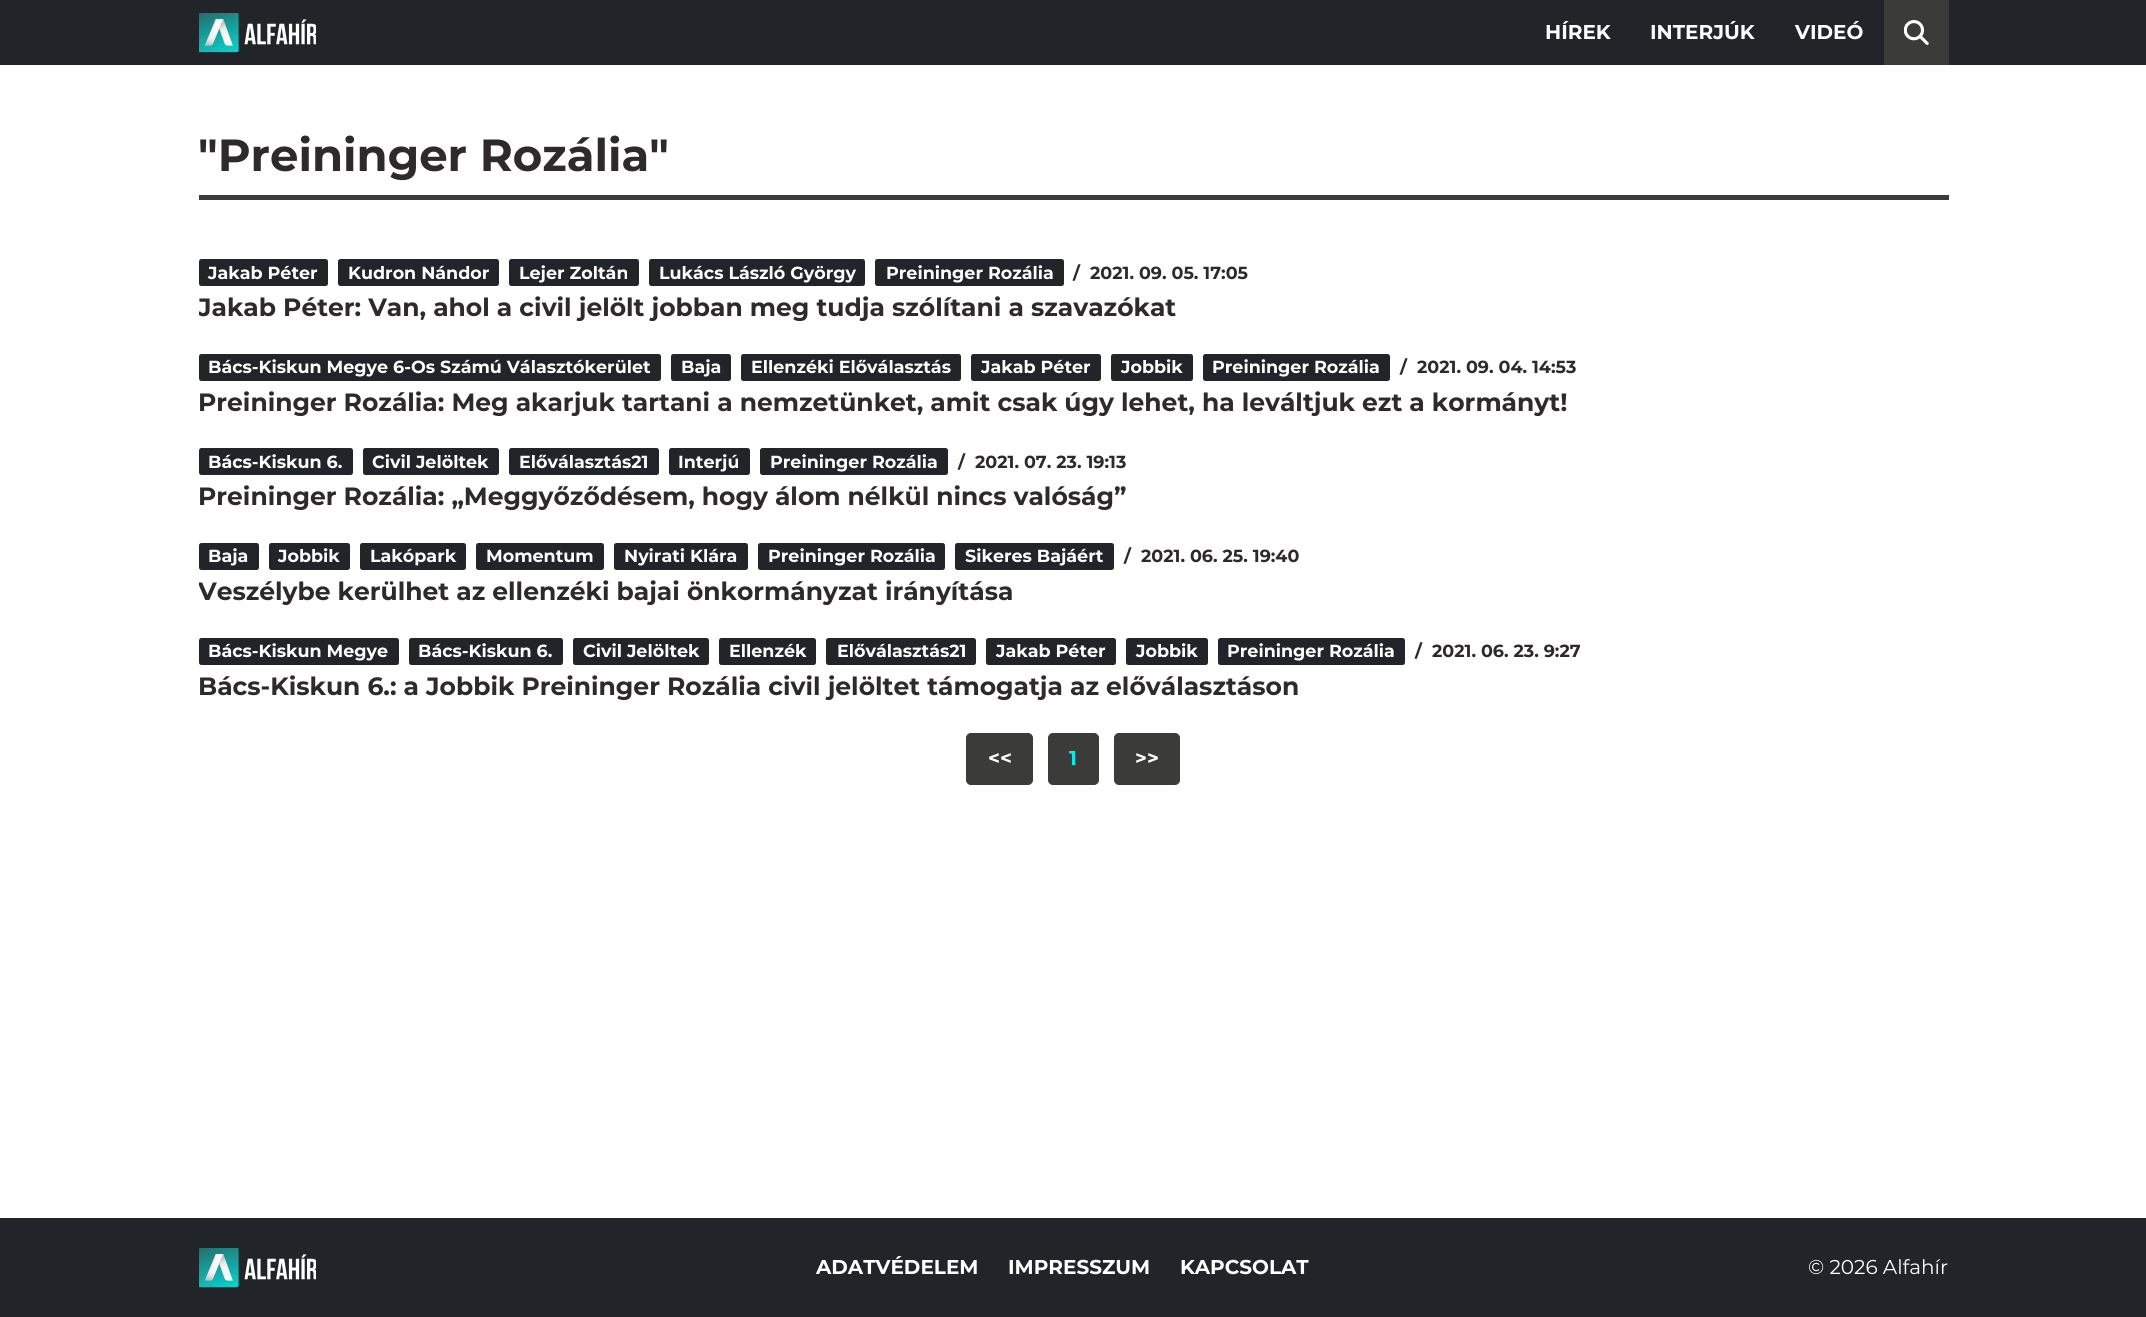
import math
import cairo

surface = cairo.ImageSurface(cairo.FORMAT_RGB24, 2146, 1317)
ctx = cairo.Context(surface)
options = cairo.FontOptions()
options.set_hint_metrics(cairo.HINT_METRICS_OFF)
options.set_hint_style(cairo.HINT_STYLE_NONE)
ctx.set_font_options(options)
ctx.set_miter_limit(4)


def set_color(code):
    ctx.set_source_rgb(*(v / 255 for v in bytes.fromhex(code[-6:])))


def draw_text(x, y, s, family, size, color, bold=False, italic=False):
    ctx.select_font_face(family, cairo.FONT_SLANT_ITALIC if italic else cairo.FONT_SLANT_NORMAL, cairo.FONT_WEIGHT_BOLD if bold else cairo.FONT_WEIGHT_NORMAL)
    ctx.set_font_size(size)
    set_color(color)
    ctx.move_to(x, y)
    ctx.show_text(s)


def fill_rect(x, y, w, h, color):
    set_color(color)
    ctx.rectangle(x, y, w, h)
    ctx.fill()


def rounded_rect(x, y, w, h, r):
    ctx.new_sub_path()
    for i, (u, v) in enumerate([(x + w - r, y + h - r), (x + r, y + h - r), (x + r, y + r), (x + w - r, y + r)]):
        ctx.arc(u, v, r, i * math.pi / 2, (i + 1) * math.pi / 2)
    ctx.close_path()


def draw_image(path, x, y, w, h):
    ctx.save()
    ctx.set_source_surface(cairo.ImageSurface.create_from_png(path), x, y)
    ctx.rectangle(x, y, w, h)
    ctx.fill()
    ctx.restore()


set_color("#ffffff")
ctx.paint()
fill_rect(0, 0, 2146, 65, "#212529")
draw_image("assets/img1.png", 199, 13, 117, 40)
draw_text(1545, 39, "HÍREK", "Montserrat", 20, "#ffffff", bold=True)
draw_text(1650, 39, "INTERJÚK", "Montserrat", 20, "#ffffff", bold=True)
draw_text(1795, 39, "VIDEÓ", "Montserrat", 20, "#ffffff", bold=True)
fill_rect(1884, 0, 65, 65, "#3b3b3a")
draw_image("assets/img2.png", 1904, 20, 25, 25)
fill_rect(199, 195, 1750, 5, "#3b3b3a")
draw_text(198, 171, "\"Preininger Rozália\"", "Montserrat", 45, "#2e292a", bold=True)
set_color("#212529")
rounded_rect(199, 259, 129, 27, 2.5)
ctx.fill()
draw_text(208, 279, "Jakab Péter", "Montserrat", 17.5, "#ffffff", bold=True)
set_color("#212529")
rounded_rect(338, 259, 161, 27, 2.5)
ctx.fill()
draw_text(348, 279, "Kudron Nándor", "Montserrat", 17.5, "#ffffff", bold=True)
set_color("#212529")
rounded_rect(509, 259, 130, 27, 2.5)
ctx.fill()
draw_text(519, 279, "Lejer Zoltán", "Montserrat", 17.5, "#ffffff", bold=True)
set_color("#212529")
rounded_rect(649, 259, 216, 27, 2.5)
ctx.fill()
draw_text(659, 279, "Lukács László György", "Montserrat", 17.5, "#ffffff", bold=True)
set_color("#212529")
rounded_rect(875, 259, 189, 27, 2.5)
ctx.fill()
draw_text(886, 279, "Preininger Rozália", "Montserrat", 17.5, "#ffffff", bold=True)
draw_text(1073, 279, "/", "Montserrat", 17.5, "#2e292a", bold=True)
draw_text(1090, 279, "2021. 09. 05. 17:05", "Montserrat", 17.5, "#2e292a", bold=True)
ctx.save()
ctx.rectangle(199, 291, 1750, 34)
ctx.clip()
draw_text(198, 316, "Jakab Péter: Van, ahol a civil jelölt jobban meg tudja szólítani a szavazókat", "Montserrat", 25, "#2e292a", bold=True)
ctx.restore()
set_color("#212529")
rounded_rect(199, 354, 462, 27, 2.5)
ctx.fill()
draw_text(208, 373, "Bács-Kiskun Megye 6-Os Számú Választókerület", "Montserrat", 17.5, "#ffffff", bold=True)
set_color("#212529")
rounded_rect(671, 354, 60, 27, 2.5)
ctx.fill()
draw_text(681, 373, "Baja", "Montserrat", 17.5, "#ffffff", bold=True)
set_color("#212529")
rounded_rect(741, 354, 220, 27, 2.5)
ctx.fill()
draw_text(751, 373, "Ellenzéki Előválasztás", "Montserrat", 17.5, "#ffffff", bold=True)
set_color("#212529")
rounded_rect(971, 354, 130, 27, 2.5)
ctx.fill()
draw_text(981, 373, "Jakab Péter", "Montserrat", 17.5, "#ffffff", bold=True)
set_color("#212529")
rounded_rect(1111, 354, 82, 27, 2.5)
ctx.fill()
draw_text(1121, 373, "Jobbik", "Montserrat", 17.5, "#ffffff", bold=True)
set_color("#212529")
rounded_rect(1203, 354, 187, 27, 2.5)
ctx.fill()
draw_text(1212, 373, "Preininger Rozália", "Montserrat", 17.5, "#ffffff", bold=True)
draw_text(1400, 373, "/", "Montserrat", 17.5, "#2e292a", bold=True)
draw_text(1417, 373, "2021. 09. 04. 14:53", "Montserrat", 17.5, "#2e292a", bold=True)
draw_text(198, 411, "Preininger Rozália: Meg akarjuk tartani a nemzetünket, amit csak úgy lehet, ha leváltjuk ezt a kormányt!", "Montserrat", 25, "#2e292a", bold=True)
set_color("#212529")
rounded_rect(199, 448, 154, 27, 2.5)
ctx.fill()
draw_text(208, 468, "Bács-Kiskun 6.", "Montserrat", 17.5, "#ffffff", bold=True)
set_color("#212529")
rounded_rect(363, 448, 136, 27, 2.5)
ctx.fill()
draw_text(372, 468, "Civil Jelöltek", "Montserrat", 17.5, "#ffffff", bold=True)
set_color("#212529")
rounded_rect(509, 448, 150, 27, 2.5)
ctx.fill()
draw_text(519, 468, "Előválasztás21", "Montserrat", 17.5, "#ffffff", bold=True)
set_color("#212529")
rounded_rect(669, 448, 81, 27, 2.5)
ctx.fill()
draw_text(678, 468, "Interjú", "Montserrat", 17.5, "#ffffff", bold=True)
set_color("#212529")
rounded_rect(760, 448, 188, 27, 2.5)
ctx.fill()
draw_text(770, 468, "Preininger Rozália", "Montserrat", 17.5, "#ffffff", bold=True)
draw_text(958, 468, "/", "Montserrat", 17.5, "#2e292a", bold=True)
draw_text(975, 468, "2021. 07. 23. 19:13", "Montserrat", 17.5, "#2e292a", bold=True)
draw_text(198, 505, "Preininger Rozália: „Meggyőződésem, hogy álom nélkül nincs valóság”", "Montserrat", 25, "#2e292a", bold=True)
set_color("#212529")
rounded_rect(199, 543, 60, 27, 2.5)
ctx.fill()
draw_text(208, 562, "Baja", "Montserrat", 17.5, "#ffffff", bold=True)
set_color("#212529")
rounded_rect(269, 543, 81, 27, 2.5)
ctx.fill()
draw_text(278, 562, "Jobbik", "Montserrat", 17.5, "#ffffff", bold=True)
set_color("#212529")
rounded_rect(360, 543, 106, 27, 2.5)
ctx.fill()
draw_text(370, 562, "Lakópark", "Montserrat", 17.5, "#ffffff", bold=True)
set_color("#212529")
rounded_rect(476, 543, 128, 27, 2.5)
ctx.fill()
draw_text(486, 562, "Momentum", "Montserrat", 17.5, "#ffffff", bold=True)
set_color("#212529")
rounded_rect(614, 543, 134, 27, 2.5)
ctx.fill()
draw_text(624, 562, "Nyirati Klára", "Montserrat", 17.5, "#ffffff", bold=True)
set_color("#212529")
rounded_rect(758, 543, 187, 27, 2.5)
ctx.fill()
draw_text(768, 562, "Preininger Rozália", "Montserrat", 17.5, "#ffffff", bold=True)
set_color("#212529")
rounded_rect(955, 543, 159, 27, 2.5)
ctx.fill()
draw_text(965, 562, "Sikeres Bajáért", "Montserrat", 17.5, "#ffffff", bold=True)
draw_text(1124, 562, "/", "Montserrat", 17.5, "#2e292a", bold=True)
draw_text(1141, 562, "2021. 06. 25. 19:40", "Montserrat", 17.5, "#2e292a", bold=True)
ctx.save()
ctx.rectangle(199, 575, 1750, 34)
ctx.clip()
draw_text(198, 600, "Veszélybe kerülhet az ellenzéki bajai önkormányzat irányítása", "Montserrat", 25, "#2e292a", bold=True)
ctx.restore()
set_color("#212529")
rounded_rect(199, 638, 200, 27, 2.5)
ctx.fill()
draw_text(208, 657, "Bács-Kiskun Megye", "Montserrat", 17.5, "#ffffff", bold=True)
set_color("#212529")
rounded_rect(409, 638, 154, 27, 2.5)
ctx.fill()
draw_text(418, 657, "Bács-Kiskun 6.", "Montserrat", 17.5, "#ffffff", bold=True)
set_color("#212529")
rounded_rect(573, 638, 136, 27, 2.5)
ctx.fill()
draw_text(583, 657, "Civil Jelöltek", "Montserrat", 17.5, "#ffffff", bold=True)
set_color("#212529")
rounded_rect(719, 638, 97, 27, 2.5)
ctx.fill()
draw_text(729, 657, "Ellenzék", "Montserrat", 17.5, "#ffffff", bold=True)
set_color("#212529")
rounded_rect(826, 638, 150, 27, 2.5)
ctx.fill()
draw_text(837, 657, "Előválasztás21", "Montserrat", 17.5, "#ffffff", bold=True)
set_color("#212529")
rounded_rect(986, 638, 130, 27, 2.5)
ctx.fill()
draw_text(996, 657, "Jakab Péter", "Montserrat", 17.5, "#ffffff", bold=True)
set_color("#212529")
rounded_rect(1126, 638, 82, 27, 2.5)
ctx.fill()
draw_text(1136, 657, "Jobbik", "Montserrat", 17.5, "#ffffff", bold=True)
set_color("#212529")
rounded_rect(1218, 638, 187, 27, 2.5)
ctx.fill()
draw_text(1227, 657, "Preininger Rozália", "Montserrat", 17.5, "#ffffff", bold=True)
draw_text(1415, 657, "/", "Montserrat", 17.5, "#2e292a", bold=True)
draw_text(1432, 657, "2021. 06. 23. 9:27", "Montserrat", 17.5, "#2e292a", bold=True)
draw_text(198, 695, "Bács-Kiskun 6.: a Jobbik Preininger Rozália civil jelöltet támogatja az előválasztáson", "Montserrat", 25, "#2e292a", bold=True)
set_color("#3b3b3a")
rounded_rect(966.5, 733.5, 66, 51, 4.5)
ctx.fill_preserve()
ctx.set_line_width(1)
ctx.stroke()
draw_text(988, 765, "<<", "Montserrat", 20, "#ffffff", bold=True)
set_color("#3b3b3a")
rounded_rect(1048.5, 733.5, 50, 51, 4.5)
ctx.fill_preserve()
ctx.stroke()
draw_text(1069, 765, "1", "Montserrat", 20, "#00f0e8", bold=True)
set_color("#3b3b3a")
rounded_rect(1114.5, 733.5, 65, 51, 4.5)
ctx.fill_preserve()
ctx.stroke()
draw_text(1135, 765, ">>", "Montserrat", 20, "#ffffff", bold=True)
fill_rect(0, 1218, 2146, 99, "#212529")
draw_image("assets/img1.png", 199, 1248, 117, 40)
draw_text(816, 1274, "ADATVÉDELEM", "Montserrat", 20, "#ffffff", bold=True)
draw_text(1008, 1274, "IMPRESSZUM", "Montserrat", 20, "#ffffff", bold=True)
draw_text(1180, 1274, "KAPCSOLAT", "Montserrat", 20, "#ffffff", bold=True)
draw_text(1808, 1274, "© 2026 Alfahír", "Montserrat", 20, "#ffffff")
surface.write_to_png("output.png")
